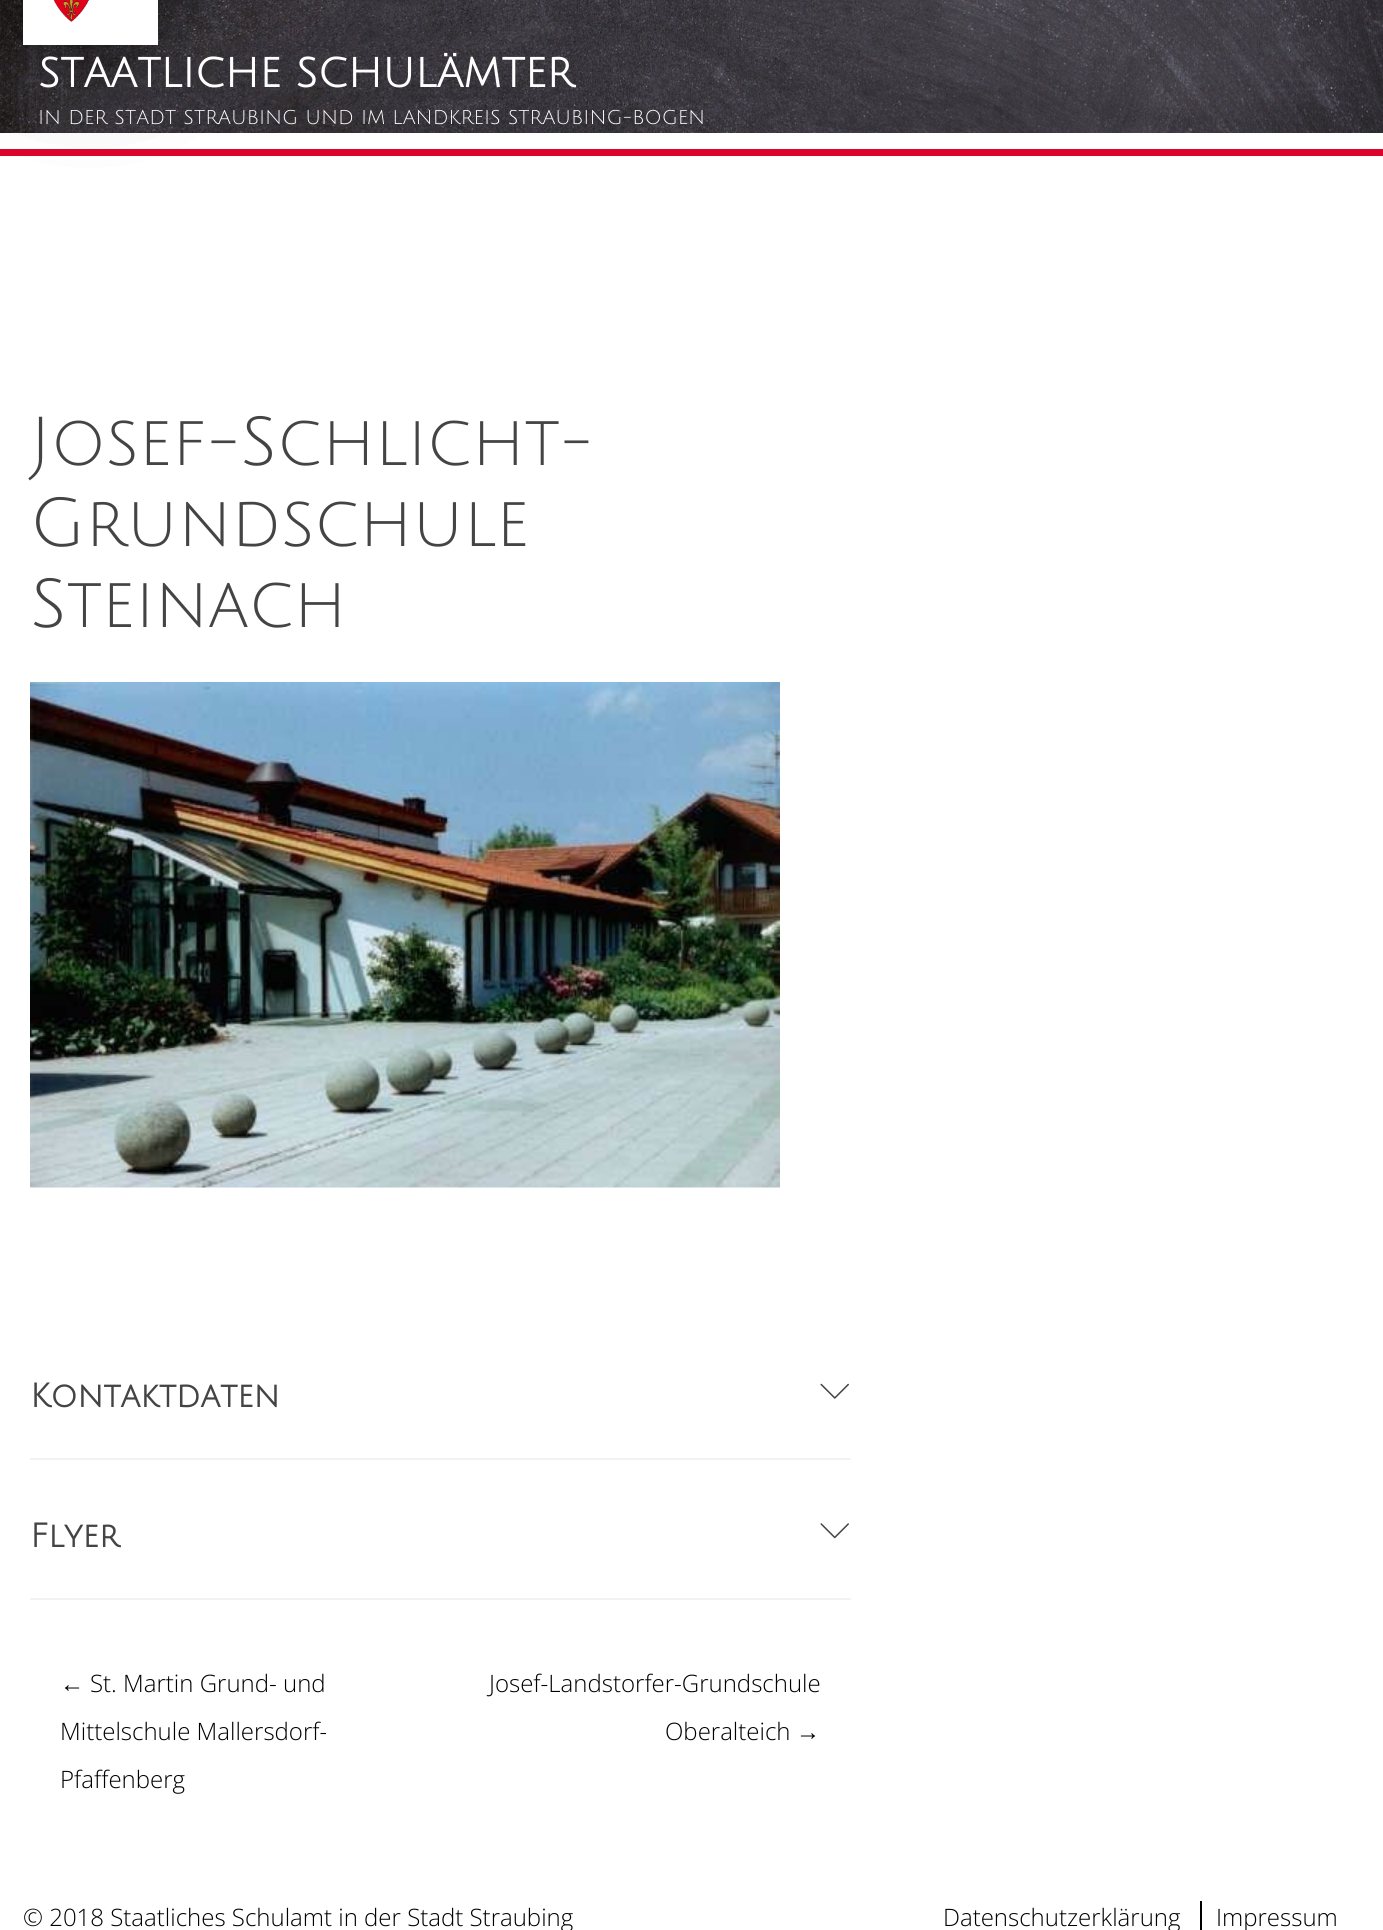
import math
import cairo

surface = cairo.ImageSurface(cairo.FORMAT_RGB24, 1383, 1930)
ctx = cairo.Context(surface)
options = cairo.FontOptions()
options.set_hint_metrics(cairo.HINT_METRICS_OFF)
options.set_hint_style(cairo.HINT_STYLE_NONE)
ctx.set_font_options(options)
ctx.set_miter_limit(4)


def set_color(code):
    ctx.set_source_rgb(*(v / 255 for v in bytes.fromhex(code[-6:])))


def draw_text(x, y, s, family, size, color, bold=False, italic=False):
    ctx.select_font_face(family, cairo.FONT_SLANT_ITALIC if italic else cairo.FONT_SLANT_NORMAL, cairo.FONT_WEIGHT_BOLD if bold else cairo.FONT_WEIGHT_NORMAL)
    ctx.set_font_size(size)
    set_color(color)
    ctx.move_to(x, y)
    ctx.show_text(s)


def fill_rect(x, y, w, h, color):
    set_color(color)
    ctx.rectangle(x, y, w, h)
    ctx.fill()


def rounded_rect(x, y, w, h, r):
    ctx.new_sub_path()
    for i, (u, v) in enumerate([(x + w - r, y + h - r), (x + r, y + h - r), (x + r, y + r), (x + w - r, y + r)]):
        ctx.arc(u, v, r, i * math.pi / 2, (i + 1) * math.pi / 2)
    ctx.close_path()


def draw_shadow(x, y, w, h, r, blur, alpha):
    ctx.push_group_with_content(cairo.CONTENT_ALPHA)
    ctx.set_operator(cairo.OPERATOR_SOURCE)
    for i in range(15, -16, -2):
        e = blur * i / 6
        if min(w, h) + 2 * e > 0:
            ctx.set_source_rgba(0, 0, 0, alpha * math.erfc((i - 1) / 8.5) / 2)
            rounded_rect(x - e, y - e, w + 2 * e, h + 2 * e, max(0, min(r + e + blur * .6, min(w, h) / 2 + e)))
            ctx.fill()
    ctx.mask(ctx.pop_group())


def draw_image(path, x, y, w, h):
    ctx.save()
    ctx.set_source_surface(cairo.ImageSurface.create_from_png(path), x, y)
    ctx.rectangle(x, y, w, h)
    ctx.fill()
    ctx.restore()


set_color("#ffffff")
ctx.paint()
fill_rect(0, 149, 1383, 7, "#dd042b")
draw_image("assets/img2.png", 0, 0, 1383, 133)
set_color("#000000")
draw_shadow(48, -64, 84, 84, 0, 59, 1)
fill_rect(23, 0, 135, 45, "#ffffff")
draw_image("assets/img1.png", 53, 0, 37, 22)
draw_text(38, 87, "STAATLICHE SCHULÄMTER", "Julius Sans One", 40.5, "#ffffff", bold=True)
draw_text(38, 124, "IN DER STADT STRAUBING UND IM LANDKREIS STRAUBING-BOGEN", "Julius Sans One", 19.5, "#ffffff")
draw_text(30, 465, "Josef-Schlicht-", "Julius Sans One", 67.5, "#444444")
draw_text(30, 546, "Grundschule", "Julius Sans One", 67.5, "#444444")
draw_text(30, 627, "Steinach", "Julius Sans One", 67.5, "#444444")
draw_image("assets/img3.png", 30, 682, 750, 506)
fill_rect(30, 1458, 821, 2, "#f3f3f3")
draw_image("assets/img4.png", 820, 1383, 29, 16)
draw_text(30, 1407, "Kontaktdaten", "Julius Sans One", 33, "#444444", bold=True)
fill_rect(30, 1598, 821, 2, "#f3f3f3")
draw_image("assets/img5.png", 820, 1523, 29, 16)
draw_text(30, 1547, "Flyer", "Julius Sans One", 33, "#444444", bold=True)
draw_text(60, 1692, "←", "Liberation Serif", 24, "#000000")
draw_text(90, 1692, "St. Martin Grund- und", "Open Sans Light", 24, "#000000")
draw_text(60, 1740, "Mittelschule Mallersdorf-", "Open Sans Light", 24, "#000000")
draw_text(60, 1788, "Pfaffenberg", "Open Sans Light", 24, "#000000")
draw_text(489, 1692, "Josef-Landstorfer-Grundschule", "Open Sans Light", 24, "#000000")
draw_text(665, 1740, "Oberalteich", "Open Sans Light", 24, "#000000")
draw_text(796, 1740, "→", "Liberation Serif", 24, "#000000")
draw_text(23, 1926, "© 2018 Staatliches Schulamt in der Stadt Straubing", "Open Sans Light", 24, "#000000")
draw_text(943, 1926, "Datenschutzerklärung", "Open Sans Light", 24, "#000000")
draw_text(1216, 1926, "Impressum", "Open Sans Light", 24, "#000000")
fill_rect(1200, 1901, 2, 29, "#000000")
surface.write_to_png("output.png")
